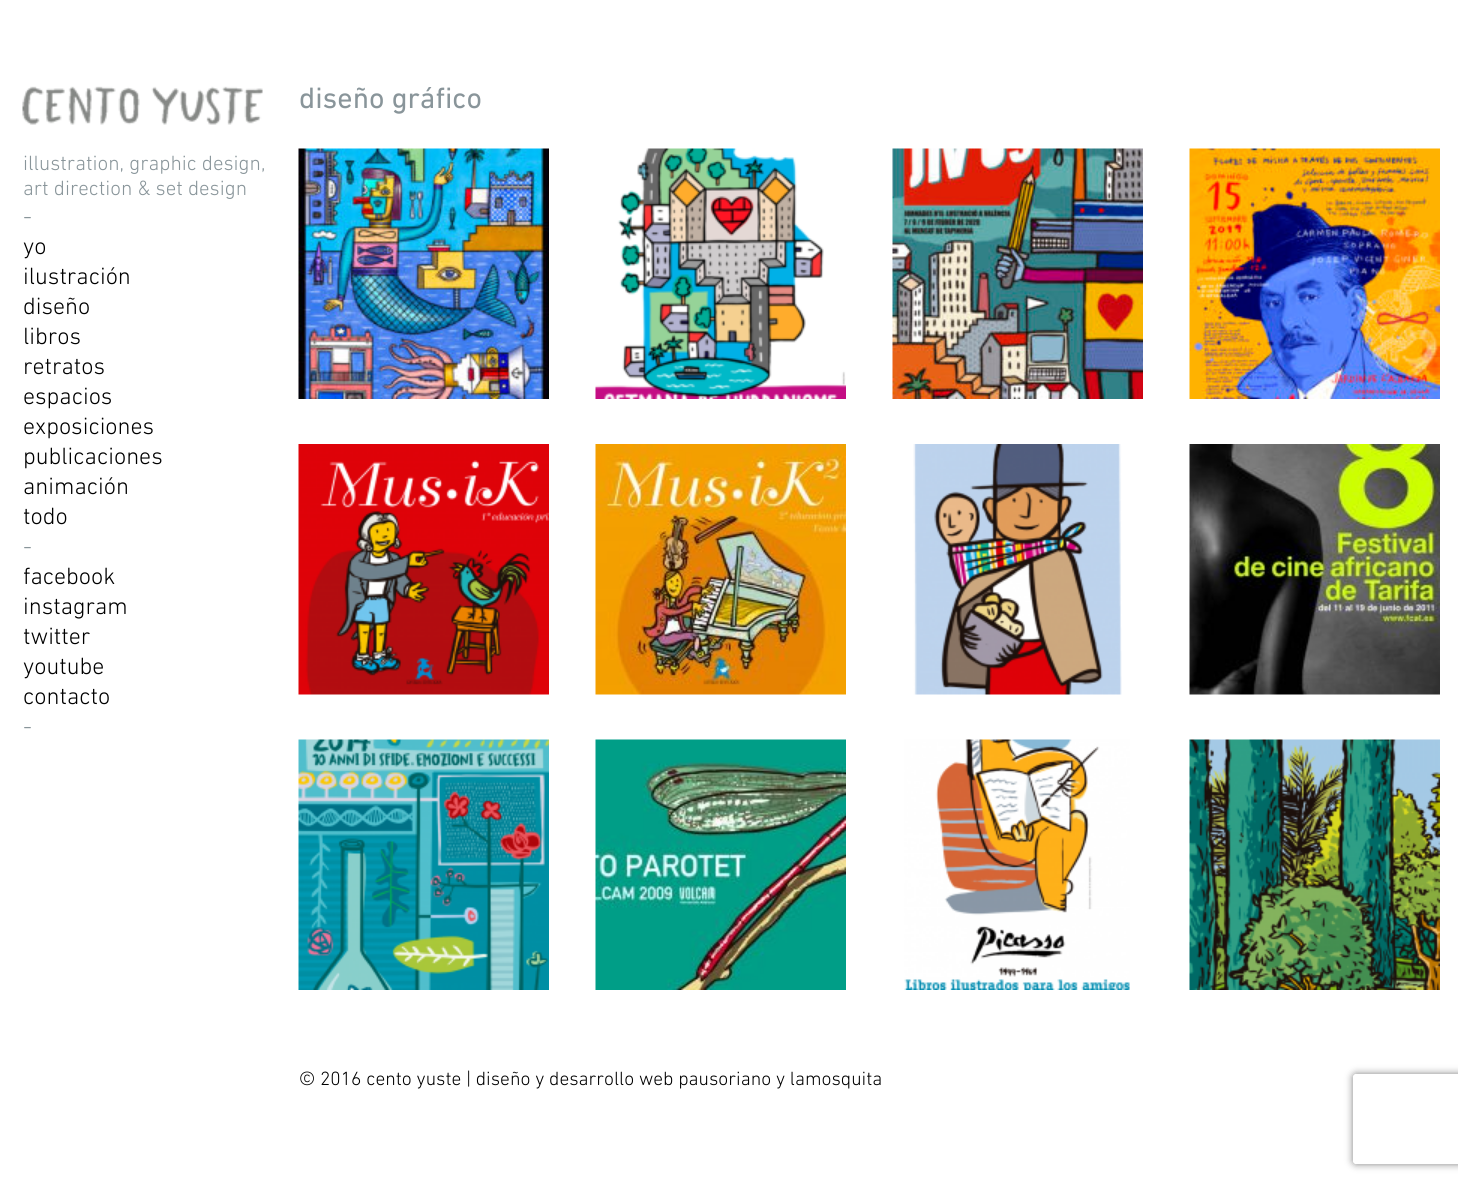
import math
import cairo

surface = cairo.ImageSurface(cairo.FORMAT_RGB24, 1458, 1185)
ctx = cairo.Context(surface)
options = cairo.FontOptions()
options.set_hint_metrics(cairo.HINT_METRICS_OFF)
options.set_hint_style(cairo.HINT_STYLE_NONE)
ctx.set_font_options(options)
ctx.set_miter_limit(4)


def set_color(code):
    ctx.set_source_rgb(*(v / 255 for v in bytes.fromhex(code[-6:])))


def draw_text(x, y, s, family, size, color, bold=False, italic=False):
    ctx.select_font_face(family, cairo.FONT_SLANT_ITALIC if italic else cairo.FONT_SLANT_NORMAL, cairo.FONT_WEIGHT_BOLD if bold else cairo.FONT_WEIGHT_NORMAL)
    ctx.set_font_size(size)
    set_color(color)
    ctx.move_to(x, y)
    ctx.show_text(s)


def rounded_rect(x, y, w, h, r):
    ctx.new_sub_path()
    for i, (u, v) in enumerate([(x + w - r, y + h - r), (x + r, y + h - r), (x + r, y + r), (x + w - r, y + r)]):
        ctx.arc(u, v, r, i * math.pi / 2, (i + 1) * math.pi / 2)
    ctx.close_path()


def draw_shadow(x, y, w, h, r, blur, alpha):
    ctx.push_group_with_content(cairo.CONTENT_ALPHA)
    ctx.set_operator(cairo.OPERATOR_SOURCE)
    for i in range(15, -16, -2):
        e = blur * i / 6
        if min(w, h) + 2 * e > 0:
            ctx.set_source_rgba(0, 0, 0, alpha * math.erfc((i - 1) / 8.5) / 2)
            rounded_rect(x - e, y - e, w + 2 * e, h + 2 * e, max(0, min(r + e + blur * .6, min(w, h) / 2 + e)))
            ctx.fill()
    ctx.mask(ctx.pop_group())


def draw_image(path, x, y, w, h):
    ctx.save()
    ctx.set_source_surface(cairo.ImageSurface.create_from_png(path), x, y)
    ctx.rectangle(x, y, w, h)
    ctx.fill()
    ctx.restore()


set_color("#ffffff")
ctx.paint()
draw_text(299, 108, "diseño gráfico", "DIN Next", 30, "#89959a")
draw_image("assets/img1.png", 298, 148, 251, 251)
draw_image("assets/img2.png", 595, 148, 251, 251)
draw_image("assets/img3.png", 892, 148, 251, 251)
draw_image("assets/img4.png", 1189, 148, 251, 251)
draw_image("assets/img5.png", 298, 444, 251, 251)
draw_image("assets/img6.png", 595, 444, 251, 251)
draw_image("assets/img7.png", 913, 444, 209, 251)
draw_image("assets/img8.png", 1189, 444, 251, 251)
draw_image("assets/img9.png", 298, 739, 251, 251)
draw_image("assets/img10.png", 595, 739, 251, 251)
draw_image("assets/img11.png", 904, 739, 226, 251)
draw_image("assets/img12.png", 1189, 739, 251, 251)
draw_image("assets/img13.png", 22, 86, 241, 39)
draw_text(23, 170, "illustration, graphic design,", "DIN Next Light", 21, "#89959a")
draw_text(23, 195, "art direction & set design", "DIN Next Light", 21, "#89959a")
draw_text(23, 224, "-", "DIN Next Light", 24, "#89959a")
draw_text(23, 254, "yo", "DIN Next Light", 24, "#000000")
draw_text(23, 284, "ilustración", "DIN Next Light", 24, "#000000")
draw_text(23, 314, "diseño", "DIN Next Light", 24, "#000000")
draw_text(23, 344, "libros", "DIN Next Light", 24, "#000000")
draw_text(23, 374, "retratos", "DIN Next Light", 24, "#000000")
draw_text(23, 404, "espacios", "DIN Next Light", 24, "#000000")
draw_text(23, 434, "exposiciones", "DIN Next Light", 24, "#000000")
draw_text(23, 464, "publicaciones", "DIN Next Light", 24, "#000000")
draw_text(23, 494, "animación", "DIN Next Light", 24, "#000000")
draw_text(23, 524, "todo", "DIN Next Light", 24, "#000000")
draw_text(23, 554, "-", "DIN Next Light", 24, "#89959a")
draw_text(23, 584, "facebook", "DIN Next Light", 24, "#000000")
draw_text(23, 614, "instagram", "DIN Next Light", 24, "#000000")
draw_text(23, 644, "twitter", "DIN Next Light", 24, "#000000")
draw_text(23, 674, "youtube", "DIN Next Light", 24, "#000000")
draw_text(23, 704, "contacto", "DIN Next Light", 24, "#000000")
draw_text(23, 734, "-", "DIN Next Light", 24, "#89959a")
draw_text(299, 1085, "© 2016 cento yuste | diseño y desarrollo web pausoriano y lamosquita", "DIN Next Light", 19.5, "#000000")
ctx.save()
ctx.set_fill_rule(cairo.FILL_RULE_EVEN_ODD)
ctx.new_path()
ctx.move_to(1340, 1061)
ctx.line_to(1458, 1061)
ctx.line_to(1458, 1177)
ctx.line_to(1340, 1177)
ctx.close_path()
ctx.move_to(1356, 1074)
ctx.line_to(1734, 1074)
ctx.curve_to(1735.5, 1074, 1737, 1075.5, 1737, 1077)
ctx.line_to(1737, 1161)
ctx.curve_to(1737, 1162.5, 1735.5, 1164, 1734, 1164)
ctx.line_to(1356, 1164)
ctx.curve_to(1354.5, 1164, 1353, 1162.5, 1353, 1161)
ctx.line_to(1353, 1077)
ctx.curve_to(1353, 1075.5, 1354.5, 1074, 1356, 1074)
ctx.close_path()
ctx.clip()
set_color("#808080")
draw_shadow(1353, 1074, 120, 90, 3, 4, 1)
ctx.restore()
surface.write_to_png("output.png")
